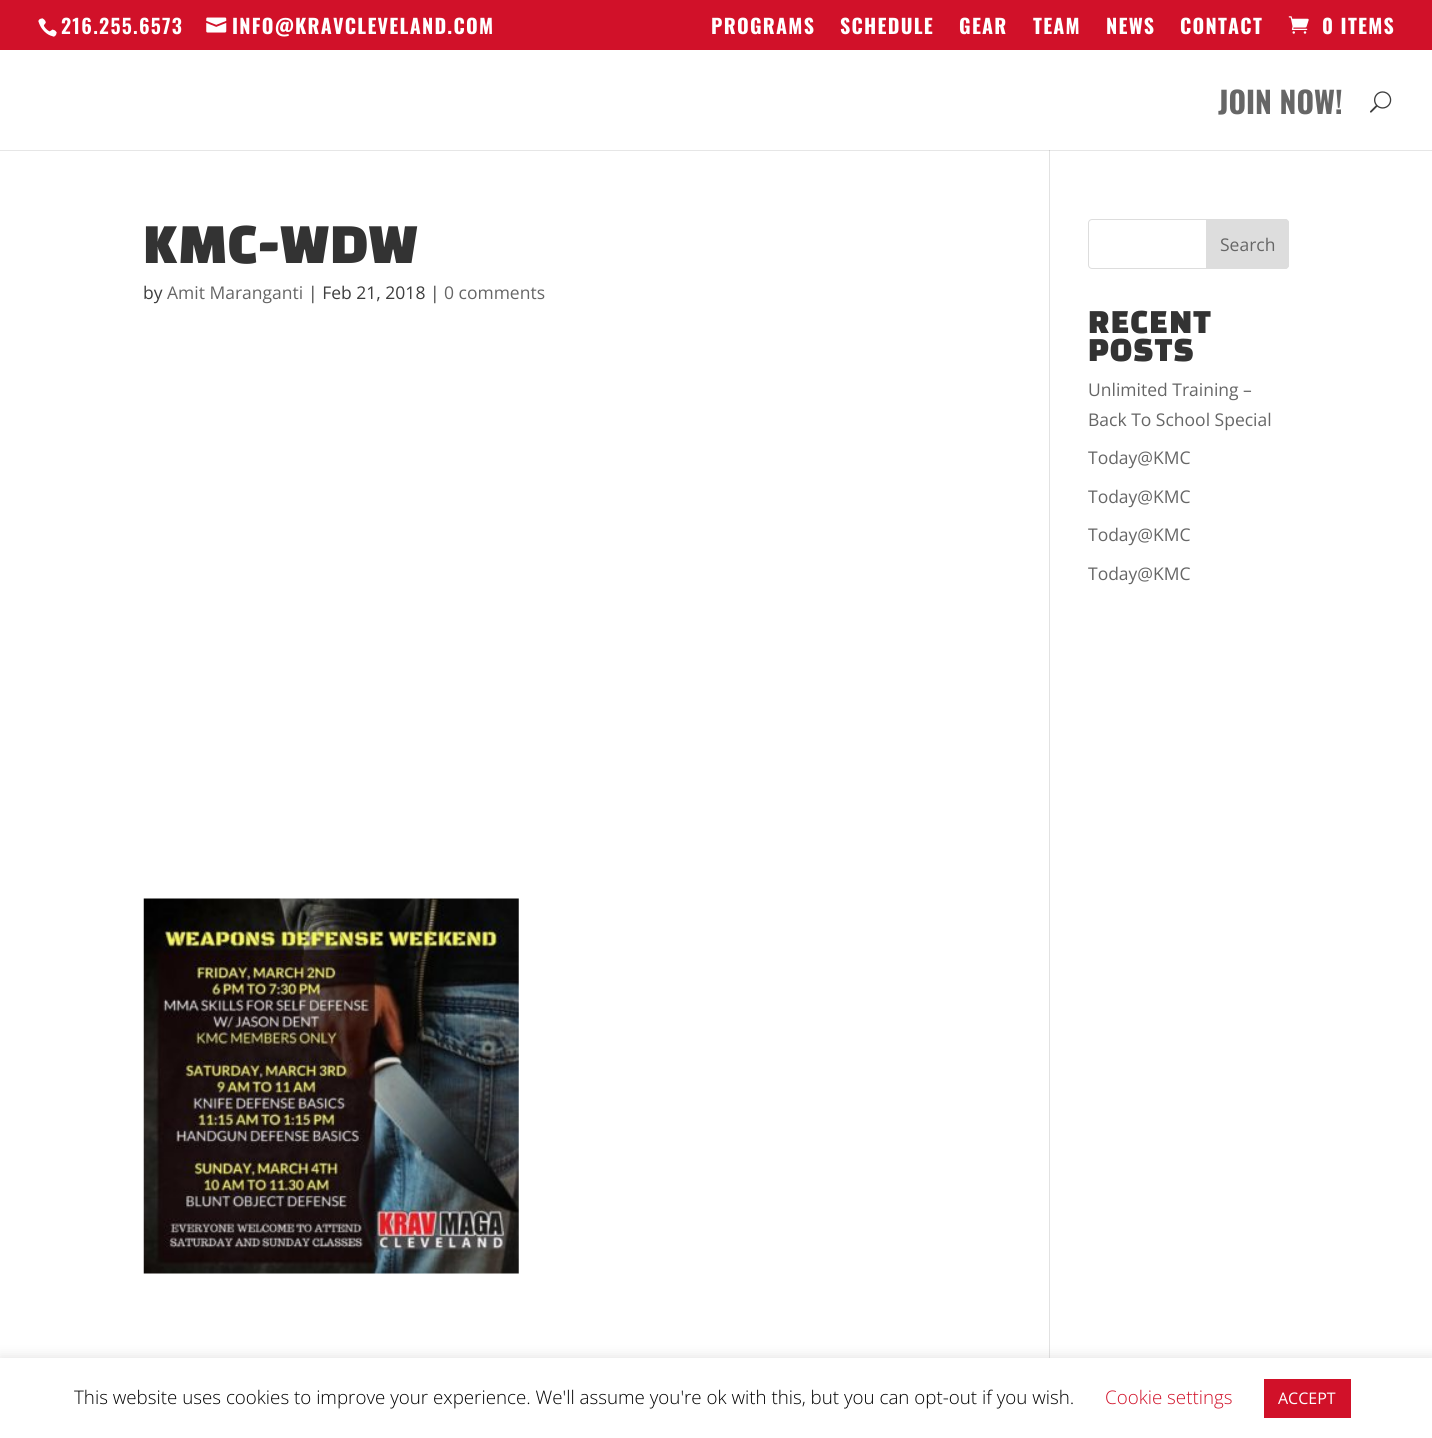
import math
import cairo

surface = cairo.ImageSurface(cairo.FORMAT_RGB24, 1432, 1438)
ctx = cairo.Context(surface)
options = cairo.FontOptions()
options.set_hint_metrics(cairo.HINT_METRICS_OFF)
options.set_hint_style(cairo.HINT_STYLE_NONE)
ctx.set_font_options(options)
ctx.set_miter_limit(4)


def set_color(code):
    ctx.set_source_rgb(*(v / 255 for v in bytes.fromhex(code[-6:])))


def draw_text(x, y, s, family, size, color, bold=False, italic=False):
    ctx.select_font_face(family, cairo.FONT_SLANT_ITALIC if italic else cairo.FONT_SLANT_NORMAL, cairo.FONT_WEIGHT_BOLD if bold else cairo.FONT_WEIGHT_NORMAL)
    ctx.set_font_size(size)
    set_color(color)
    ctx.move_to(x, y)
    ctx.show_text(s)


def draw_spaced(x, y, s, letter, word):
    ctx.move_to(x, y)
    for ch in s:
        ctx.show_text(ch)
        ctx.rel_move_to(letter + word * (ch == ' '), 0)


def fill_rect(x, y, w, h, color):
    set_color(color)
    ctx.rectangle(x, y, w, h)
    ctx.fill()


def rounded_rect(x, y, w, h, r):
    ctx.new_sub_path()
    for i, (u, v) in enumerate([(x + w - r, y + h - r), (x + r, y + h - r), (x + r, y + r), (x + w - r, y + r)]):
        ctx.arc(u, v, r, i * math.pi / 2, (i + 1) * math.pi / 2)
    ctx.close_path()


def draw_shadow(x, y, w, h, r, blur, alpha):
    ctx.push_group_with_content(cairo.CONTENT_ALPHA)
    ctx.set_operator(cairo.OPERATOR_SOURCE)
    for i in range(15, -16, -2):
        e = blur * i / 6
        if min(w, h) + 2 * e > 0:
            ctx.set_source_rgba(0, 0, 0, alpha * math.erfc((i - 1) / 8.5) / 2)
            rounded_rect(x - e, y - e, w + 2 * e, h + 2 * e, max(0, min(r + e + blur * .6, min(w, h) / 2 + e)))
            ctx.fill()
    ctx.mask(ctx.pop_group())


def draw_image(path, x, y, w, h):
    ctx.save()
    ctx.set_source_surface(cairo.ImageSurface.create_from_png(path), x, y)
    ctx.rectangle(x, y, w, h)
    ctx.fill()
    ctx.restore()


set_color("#ffffff")
ctx.paint()
fill_rect(0, 0, 1432, 50, "#d11129")
draw_image("assets/img1.png", 38, 18, 19, 19)
ctx.select_font_face("Oswald SemiBold")
ctx.set_font_size(20)
set_color("#ffffff")
draw_spaced(61, 34, "216.255.6573", 1.25, 0)
draw_image("assets/img2.png", 206, 17, 21, 16)
ctx.select_font_face("Oswald", cairo.FONT_SLANT_NORMAL, cairo.FONT_WEIGHT_BOLD)
draw_spaced(232, 34, "INFO@KRAVCLEVELAND.COM", 1.25, 0)
draw_spaced(711, 34, "PROGRAMS", 1.25, 0)
draw_spaced(840, 34, "SCHEDULE", 1.25, 0)
draw_spaced(959, 34, "GEAR", 1.25, 0)
draw_spaced(1033, 34, "TEAM", 1.25, 0)
draw_spaced(1106, 34, "NEWS", 1.25, 0)
draw_spaced(1180, 34, "CONTACT", 1.25, 0)
draw_image("assets/img3.png", 1288, 16, 21, 18)
draw_spaced(1322, 34, "0 ITEMS", 1.25, 0)
fill_rect(1049, 146, 1, 1212, "#e2e2e2")
ctx.set_source_rgba(0, 0, 0, 0.1)
ctx.new_path()
ctx.move_to(0, 150)
ctx.line_to(0, 151)
ctx.line_to(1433, 151)
ctx.line_to(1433, 51)
ctx.line_to(1432, 51)
ctx.line_to(1432, 150)
ctx.close_path()
ctx.fill()
fill_rect(1049, 146, 1, 4, "#ffffff")
draw_text(1218, 114, "JOIN NOW!", "Oswald", 30, "#666666", bold=True)
draw_image("assets/img4.png", 1370, 91, 22, 22)
ctx.select_font_face("Changa One")
ctx.set_font_size(58.75)
set_color("#333333")
draw_spaced(143, 263, "KMC-WDW", 1.25, 0)
draw_text(143, 299, "by", "Open Sans", 17.5, "#3d3d3d")
draw_text(167, 299, "Amit Maranganti", "Open Sans", 17.5, "#666666")
draw_text(308, 299, "| Feb 21, 2018 |", "Open Sans", 17.5, "#3d3d3d")
draw_text(444, 299, "0 comments", "Open Sans", 17.5, "#666666")
draw_image("assets/img5.png", 143, 898, 376, 376)
rounded_rect(1088.5, 219.5, 200, 49, 3.5)
set_color("#dddddd")
ctx.set_line_width(1)
ctx.stroke()
ctx.new_path()
ctx.move_to(1206.5, 219.5)
ctx.line_to(1285, 219.5)
ctx.curve_to(1287, 219.5, 1288.5, 221, 1288.5, 223)
ctx.line_to(1288.5, 265)
ctx.curve_to(1288.5, 267, 1287, 268.5, 1285, 268.5)
ctx.line_to(1206.5, 268.5)
ctx.close_path()
ctx.fill_preserve()
ctx.stroke()
draw_text(1220, 251, "Search", "Open Sans", 17.5, "#666666")
ctx.select_font_face("Changa One")
ctx.set_font_size(35)
set_color("#333333")
draw_spaced(1088, 333, "RECENT", 1.25, 0)
draw_spaced(1088, 361, "POSTS", 1.25, 0)
draw_text(1088, 396, "Unlimited Training –", "Open Sans", 17.5, "#666666")
draw_text(1088, 426, "Back To School Special", "Open Sans", 17.5, "#666666")
draw_text(1088, 464, "Today@KMC", "Open Sans", 17.5, "#666666")
draw_text(1088, 503, "Today@KMC", "Open Sans", 17.5, "#666666")
draw_text(1088, 541, "Today@KMC", "Open Sans", 17.5, "#666666")
draw_text(1088, 580, "Today@KMC", "Open Sans", 17.5, "#666666")
set_color("#acabab")
draw_shadow(0, 1356, 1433, 82, 0, 6, 0.3)
fill_rect(0, 1358, 1432, 80, "#ffffff")
draw_text(74, 1404, "This website uses cookies to improve your experience. We'll assume you're ok with this, but you can opt-out if you wish.", "Open Sans Light", 18.75, "#000000")
draw_text(1105, 1404, "Cookie settings", "Open Sans Light", 18.75, "#d11129")
fill_rect(1264, 1379, 87, 39, "#d11129")
draw_text(1278, 1404, "ACCEPT", "Open Sans", 16, "#ffffff")
surface.write_to_png("output.png")
